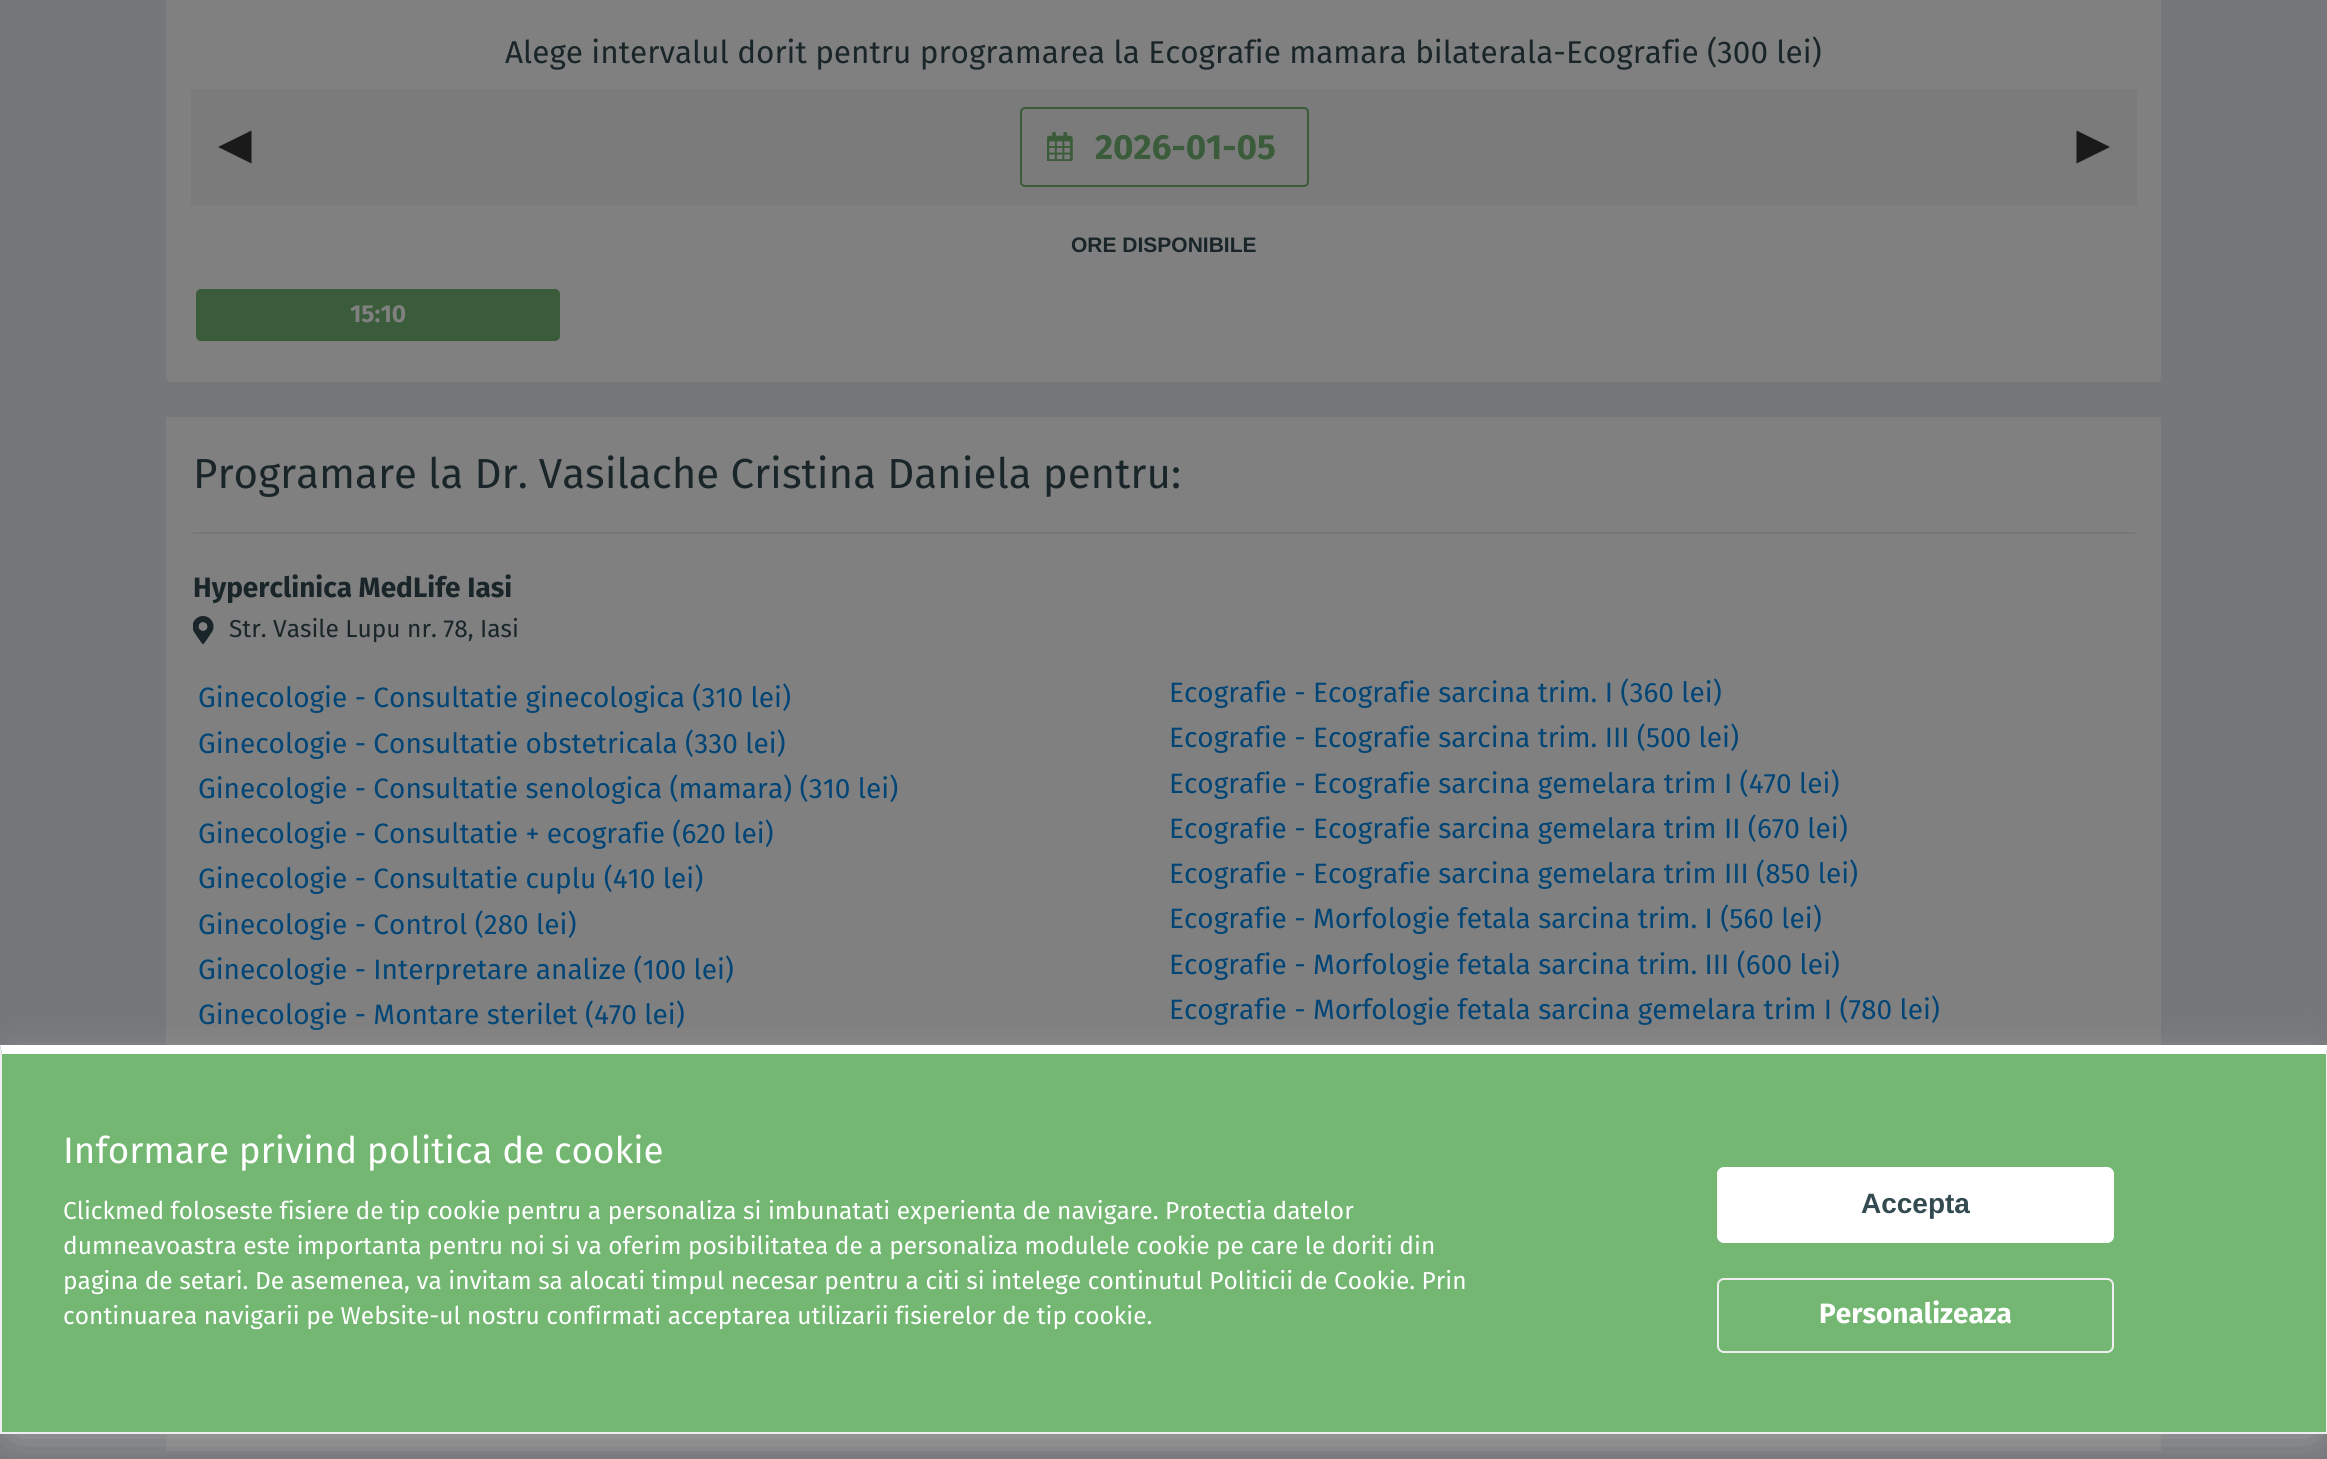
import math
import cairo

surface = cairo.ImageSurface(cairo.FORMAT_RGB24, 2327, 1459)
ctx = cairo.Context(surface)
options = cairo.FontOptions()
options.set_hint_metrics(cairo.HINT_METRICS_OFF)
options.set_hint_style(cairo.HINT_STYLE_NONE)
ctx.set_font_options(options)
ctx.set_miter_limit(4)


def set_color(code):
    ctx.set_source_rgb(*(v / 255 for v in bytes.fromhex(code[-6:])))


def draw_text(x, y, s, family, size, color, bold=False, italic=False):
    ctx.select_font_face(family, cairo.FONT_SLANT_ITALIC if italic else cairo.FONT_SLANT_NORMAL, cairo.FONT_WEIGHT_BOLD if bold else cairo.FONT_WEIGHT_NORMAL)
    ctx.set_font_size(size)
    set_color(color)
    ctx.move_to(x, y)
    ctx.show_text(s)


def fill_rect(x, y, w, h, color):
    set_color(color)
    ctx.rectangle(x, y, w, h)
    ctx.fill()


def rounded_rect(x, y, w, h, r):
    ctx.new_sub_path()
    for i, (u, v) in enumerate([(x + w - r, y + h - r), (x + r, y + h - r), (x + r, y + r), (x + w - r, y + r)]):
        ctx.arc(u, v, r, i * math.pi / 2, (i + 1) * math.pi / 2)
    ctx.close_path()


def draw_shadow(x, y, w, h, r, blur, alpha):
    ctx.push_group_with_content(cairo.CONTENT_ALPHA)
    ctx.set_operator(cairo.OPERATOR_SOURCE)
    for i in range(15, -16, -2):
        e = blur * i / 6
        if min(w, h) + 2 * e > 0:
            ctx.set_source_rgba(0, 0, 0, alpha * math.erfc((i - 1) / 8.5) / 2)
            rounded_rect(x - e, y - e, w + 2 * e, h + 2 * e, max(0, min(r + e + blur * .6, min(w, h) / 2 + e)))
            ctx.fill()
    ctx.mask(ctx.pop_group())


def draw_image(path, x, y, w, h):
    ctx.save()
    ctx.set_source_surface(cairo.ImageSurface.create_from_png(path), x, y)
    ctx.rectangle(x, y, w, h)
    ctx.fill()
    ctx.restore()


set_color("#76777a")
ctx.paint()
set_color("#808080")
ctx.new_path()
ctx.move_to(166, -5)
ctx.line_to(2161, -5)
ctx.line_to(2161, 377)
ctx.curve_to(2161, 380, 2159, 382, 2156, 382)
ctx.line_to(171, 382)
ctx.curve_to(168, 382, 166, 380, 166, 377)
ctx.close_path()
ctx.fill()
draw_text(505, 63, "Alege intervalul dorit pentru programarea la Ecografie mamara bilaterala-Ecografie (300 lei)", "Fira Sans", 31.5, "#192528")
fill_rect(191, 89, 1946, 116, "#7b7b7b")
set_color("#1a1a1a")
ctx.new_path()
ctx.move_to(251.5, 163.5)
ctx.line_to(218, 147)
ctx.line_to(251.5, 130.5)
ctx.close_path()
ctx.fill()
rounded_rect(1021, 108, 287, 78, 4)
set_color("#3a5c3a")
ctx.stroke()
draw_image("assets/img1.png", 1047, 132, 26, 29)
draw_text(1095, 159, "2026-01-05", "Fira Sans", 35, "#3a5c3a", bold=True)
set_color("#1a1a1a")
ctx.new_path()
ctx.move_to(2076.5, 130.5)
ctx.line_to(2110, 147)
ctx.line_to(2076.5, 163.5)
ctx.close_path()
ctx.fill()
draw_text(1071, 252, "ORE DISPONIBILE", "Liberation Sans", 21, "#192528", bold=True)
set_color("#3a5c3a")
rounded_rect(196, 289, 364, 52, 5)
ctx.fill()
draw_text(350, 322, "15:10", "Fira Sans", 24.5, "#808080", bold=True)
fill_rect(166, 417, 1995, 628, "#808080")
draw_text(193, 488, "Programare la Dr. Vasilache Cristina Daniela pentru:", "Fira Sans", 42, "#192528")
fill_rect(193, 532, 1942, 2, "#777777")
draw_text(193, 597, "Hyperclinica MedLife Iasi", "Fira Sans", 28, "#192528", bold=True)
draw_image("assets/img2.png", 193, 616, 21, 28)
draw_text(229, 637, "Str. Vasile Lupu nr. 78, Iasi", "Fira Sans", 24.5, "#192528")
draw_text(198, 707, "Ginecologie - Consultatie ginecologica (310 lei)", "Fira Sans", 28, "#004576")
draw_text(1169, 702, "Ecografie - Ecografie sarcina trim. I (360 lei)", "Fira Sans", 28, "#004576")
draw_text(198, 753, "Ginecologie - Consultatie obstetricala (330 lei)", "Fira Sans", 28, "#004576")
draw_text(1169, 747, "Ecografie - Ecografie sarcina trim. III (500 lei)", "Fira Sans", 28, "#004576")
draw_text(198, 798, "Ginecologie - Consultatie senologica (mamara) (310 lei)", "Fira Sans", 28, "#004576")
draw_text(1169, 793, "Ecografie - Ecografie sarcina gemelara trim I (470 lei)", "Fira Sans", 28, "#004576")
draw_text(198, 843, "Ginecologie - Consultatie + ecografie (620 lei)", "Fira Sans", 28, "#004576")
draw_text(1169, 838, "Ecografie - Ecografie sarcina gemelara trim II (670 lei)", "Fira Sans", 28, "#004576")
draw_text(198, 888, "Ginecologie - Consultatie cuplu (410 lei)", "Fira Sans", 28, "#004576")
draw_text(1169, 883, "Ecografie - Ecografie sarcina gemelara trim III (850 lei)", "Fira Sans", 28, "#004576")
draw_text(198, 934, "Ginecologie - Control (280 lei)", "Fira Sans", 28, "#004576")
draw_text(1169, 928, "Ecografie - Morfologie fetala sarcina trim. I (560 lei)", "Fira Sans", 28, "#004576")
draw_text(198, 979, "Ginecologie - Interpretare analize (100 lei)", "Fira Sans", 28, "#004576")
draw_text(1169, 974, "Ecografie - Morfologie fetala sarcina trim. III (600 lei)", "Fira Sans", 28, "#004576")
draw_text(198, 1024, "Ginecologie - Montare sterilet (470 lei)", "Fira Sans", 28, "#004576")
draw_text(1169, 1019, "Ecografie - Morfologie fetala sarcina gemelara trim I (780 lei)", "Fira Sans", 28, "#004576")
fill_rect(166, 1434, 1995, 17, "#808080")
set_color("#b2b2b2")
draw_shadow(14, 1068, 2300, 360, 0, 22, 1)
fill_rect(2, 1054, 2324, 378, "#73b773")
set_color("#ffffff")
ctx.new_path()
ctx.move_to(0, 1045)
ctx.line_to(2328, 1045)
ctx.line_to(2326, 1054)
ctx.line_to(2, 1054)
ctx.close_path()
ctx.fill()
set_color("#eeeeee")
ctx.new_path()
ctx.move_to(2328, 1045)
ctx.line_to(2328, 1433)
ctx.line_to(2326, 1432)
ctx.line_to(2326, 1054)
ctx.close_path()
ctx.fill()
fill_rect(0, 1432, 2327, 2, "#eeeeee")
ctx.new_path()
ctx.move_to(0, 1433)
ctx.line_to(0, 1045)
ctx.line_to(2, 1054)
ctx.line_to(2, 1432)
ctx.close_path()
ctx.fill()
draw_text(63, 1163, "Informare privind politica de cookie", "Fira Sans", 36.75, "#ffffff")
draw_text(63, 1219, "Clickmed foloseste fisiere de tip cookie pentru a personaliza si imbunatati experienta de navigare. Protectia datelor", "Fira Sans", 24.5, "#ffffff")
draw_text(63, 1254, "dumneavoastra este importanta pentru noi si va oferim posibilitatea de a personaliza modulele cookie pe care le doriti din", "Fira Sans", 24.5, "#ffffff")
draw_text(63, 1289, "pagina de setari. De asemenea, va invitam sa alocati timpul necesar pentru a citi si intelege continutul Politicii de Cookie. Prin", "Fira Sans", 24.5, "#ffffff")
draw_text(63, 1324, "continuarea navigarii pe Website-ul nostru confirmati acceptarea utilizarii fisierelor de tip cookie.", "Fira Sans", 24.5, "#ffffff")
rounded_rect(1717, 1167, 397, 76, 7)
ctx.fill()
draw_text(1861, 1213, "Accepta", "Liberation Sans", 28, "#324a50", bold=True)
rounded_rect(1718, 1279, 395, 73, 6)
set_color("#eeeeee")
ctx.stroke()
draw_text(1819, 1323, "Personalizeaza", "Fira Sans", 28, "#ffffff", bold=True)
surface.write_to_png("output.png")
